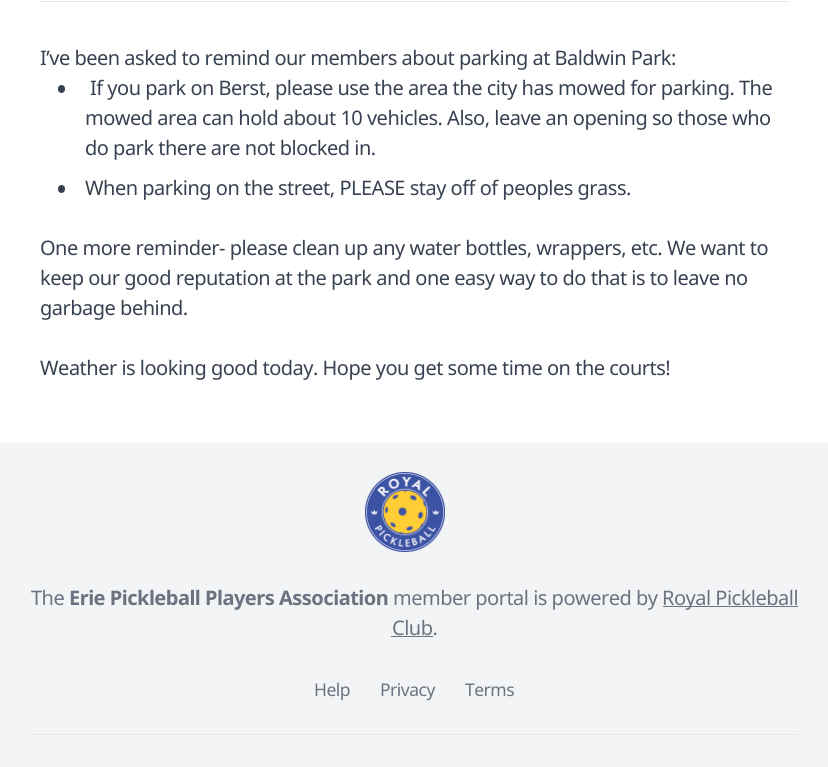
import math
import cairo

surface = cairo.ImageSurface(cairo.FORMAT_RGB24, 828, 767)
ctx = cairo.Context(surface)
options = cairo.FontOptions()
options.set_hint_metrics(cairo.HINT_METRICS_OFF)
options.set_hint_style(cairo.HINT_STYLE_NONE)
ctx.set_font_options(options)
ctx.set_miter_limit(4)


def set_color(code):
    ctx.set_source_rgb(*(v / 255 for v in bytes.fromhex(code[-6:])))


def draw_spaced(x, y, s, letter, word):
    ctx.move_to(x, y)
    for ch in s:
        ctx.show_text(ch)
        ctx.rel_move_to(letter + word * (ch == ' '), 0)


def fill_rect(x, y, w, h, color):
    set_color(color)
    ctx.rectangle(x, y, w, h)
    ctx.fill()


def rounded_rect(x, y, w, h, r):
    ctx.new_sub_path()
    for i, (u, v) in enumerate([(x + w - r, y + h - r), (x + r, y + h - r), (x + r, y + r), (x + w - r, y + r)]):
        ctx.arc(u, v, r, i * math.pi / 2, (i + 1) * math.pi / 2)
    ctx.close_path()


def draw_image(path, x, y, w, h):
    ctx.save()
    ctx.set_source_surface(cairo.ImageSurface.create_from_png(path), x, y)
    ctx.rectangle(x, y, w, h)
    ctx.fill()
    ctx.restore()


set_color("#ffffff")
ctx.paint()
fill_rect(40, 1, 749, 1, "#e5e7eb")
ctx.select_font_face("Noto Sans")
ctx.set_font_size(20)
set_color("#374151")
draw_spaced(40, 65, "I’ve been asked to remind our members about parking at Baldwin Park:", -0.5, 0)
rounded_rect(58, 85, 7, 8, 3.5)
ctx.fill()
draw_spaced(90, 95, "If you park on Berst, please use the area the city has mowed for parking. The", -0.5, 0)
draw_spaced(85, 125, "mowed area can hold about 10 vehicles. Also, leave an opening so those who", -0.5, 0)
draw_spaced(85, 155, "do park there are not blocked in.", -0.5, 0)
rounded_rect(58, 185, 7, 8, 3.5)
ctx.fill()
draw_spaced(85, 195, "When parking on the street, PLEASE stay off of peoples grass.", -0.5, 0)
draw_spaced(40, 255, "One more reminder- please clean up any water bottles, wrappers, etc. We want to", -0.5, 0)
draw_spaced(40, 285, "keep our good reputation at the park and one easy way to do that is to leave no", -0.5, 0)
draw_spaced(40, 315, "garbage behind.", -0.5, 0)
draw_spaced(40, 375, "Weather is looking good today. Hope you get some time on the courts!", -0.5, 0)
fill_rect(0, 443, 828, 324, "#f3f4f6")
draw_image("assets/img1.png", 365, 472, 80, 80)
set_color("#6b7280")
draw_spaced(31, 605, "The", -0.5, 0)
ctx.select_font_face("Noto Sans", cairo.FONT_SLANT_NORMAL, cairo.FONT_WEIGHT_BOLD)
draw_spaced(69, 605, "Erie Pickleball Players Association", -0.5, 0)
ctx.select_font_face("Noto Sans")
draw_spaced(393, 605, "member portal is powered by", -0.5, 0)
fill_rect(663, 606, 135, 1, "#6b7280")
draw_spaced(662, 605, "Royal Pickleball", -0.5, 0)
draw_spaced(392, 635, "Club.", -0.5, 0)
fill_rect(391, 636, 42, 1, "#6b7280")
ctx.set_font_size(17.5)
draw_spaced(314, 696, "Help", -0.5, 0)
draw_spaced(380, 696, "Privacy", -0.5, 0)
draw_spaced(465, 696, "Terms", -0.5, 0)
fill_rect(30, 734, 769, 1, "#e5e7eb")
surface.write_to_png("output.png")
